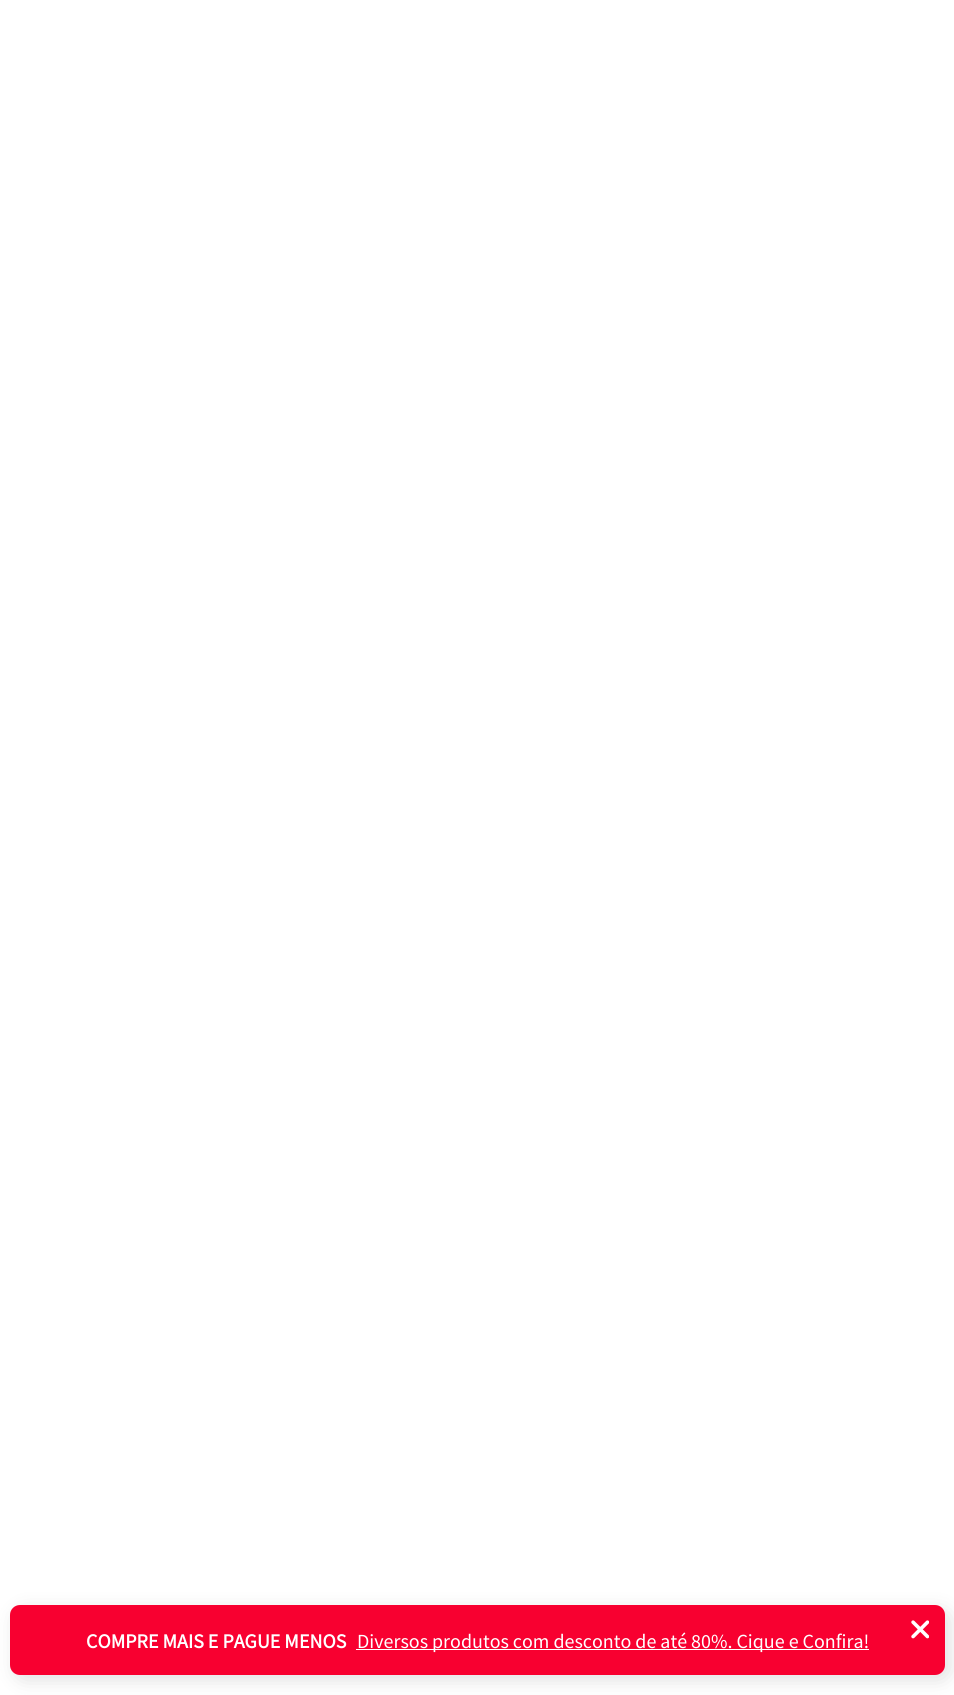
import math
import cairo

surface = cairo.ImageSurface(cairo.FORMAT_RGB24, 954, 1695)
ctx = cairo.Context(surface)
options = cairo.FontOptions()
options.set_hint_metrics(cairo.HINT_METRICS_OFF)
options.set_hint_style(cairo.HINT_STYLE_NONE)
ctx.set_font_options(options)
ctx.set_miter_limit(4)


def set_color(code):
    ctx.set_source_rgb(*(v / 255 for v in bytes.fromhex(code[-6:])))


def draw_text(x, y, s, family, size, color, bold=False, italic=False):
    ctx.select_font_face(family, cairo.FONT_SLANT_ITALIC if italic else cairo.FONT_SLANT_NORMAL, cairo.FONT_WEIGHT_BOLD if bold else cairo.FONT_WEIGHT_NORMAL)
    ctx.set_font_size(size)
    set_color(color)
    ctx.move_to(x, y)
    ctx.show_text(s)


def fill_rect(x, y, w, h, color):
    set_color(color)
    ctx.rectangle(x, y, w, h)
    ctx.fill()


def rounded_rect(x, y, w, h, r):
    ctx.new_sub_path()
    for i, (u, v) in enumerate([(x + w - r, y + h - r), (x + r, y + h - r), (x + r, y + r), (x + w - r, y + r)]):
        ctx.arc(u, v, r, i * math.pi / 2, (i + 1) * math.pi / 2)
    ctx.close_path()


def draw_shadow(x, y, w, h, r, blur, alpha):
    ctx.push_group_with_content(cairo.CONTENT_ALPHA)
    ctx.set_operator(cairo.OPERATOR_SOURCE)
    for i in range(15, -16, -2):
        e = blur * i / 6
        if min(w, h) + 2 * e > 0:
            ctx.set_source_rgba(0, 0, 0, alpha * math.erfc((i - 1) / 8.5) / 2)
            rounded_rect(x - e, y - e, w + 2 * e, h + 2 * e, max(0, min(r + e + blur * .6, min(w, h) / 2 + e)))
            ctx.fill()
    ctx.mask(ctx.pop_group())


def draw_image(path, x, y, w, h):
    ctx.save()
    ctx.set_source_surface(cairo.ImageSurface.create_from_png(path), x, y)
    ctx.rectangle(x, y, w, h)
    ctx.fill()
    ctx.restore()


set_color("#ffffff")
ctx.paint()
set_color("#000000")
draw_shadow(15, 1610, 935, 70, 10, 10, 0.12)
set_color("#f80030")
rounded_rect(10, 1605, 935, 70, 10)
ctx.fill()
draw_image("assets/img1.png", 911, 1620, 18, 19)
draw_text(86, 1648, "COMPRE MAIS E PAGUE MENOS", "Source Sans Pro", 20, "#ffffff", bold=True)
fill_rect(356, 1649, 513, 1, "#ffffff")
draw_text(357, 1648, "Diversos produtos com desconto de até 80%. Cique e Confira!", "Source Sans Pro", 20, "#ffffff")
surface.write_to_png("output.png")
